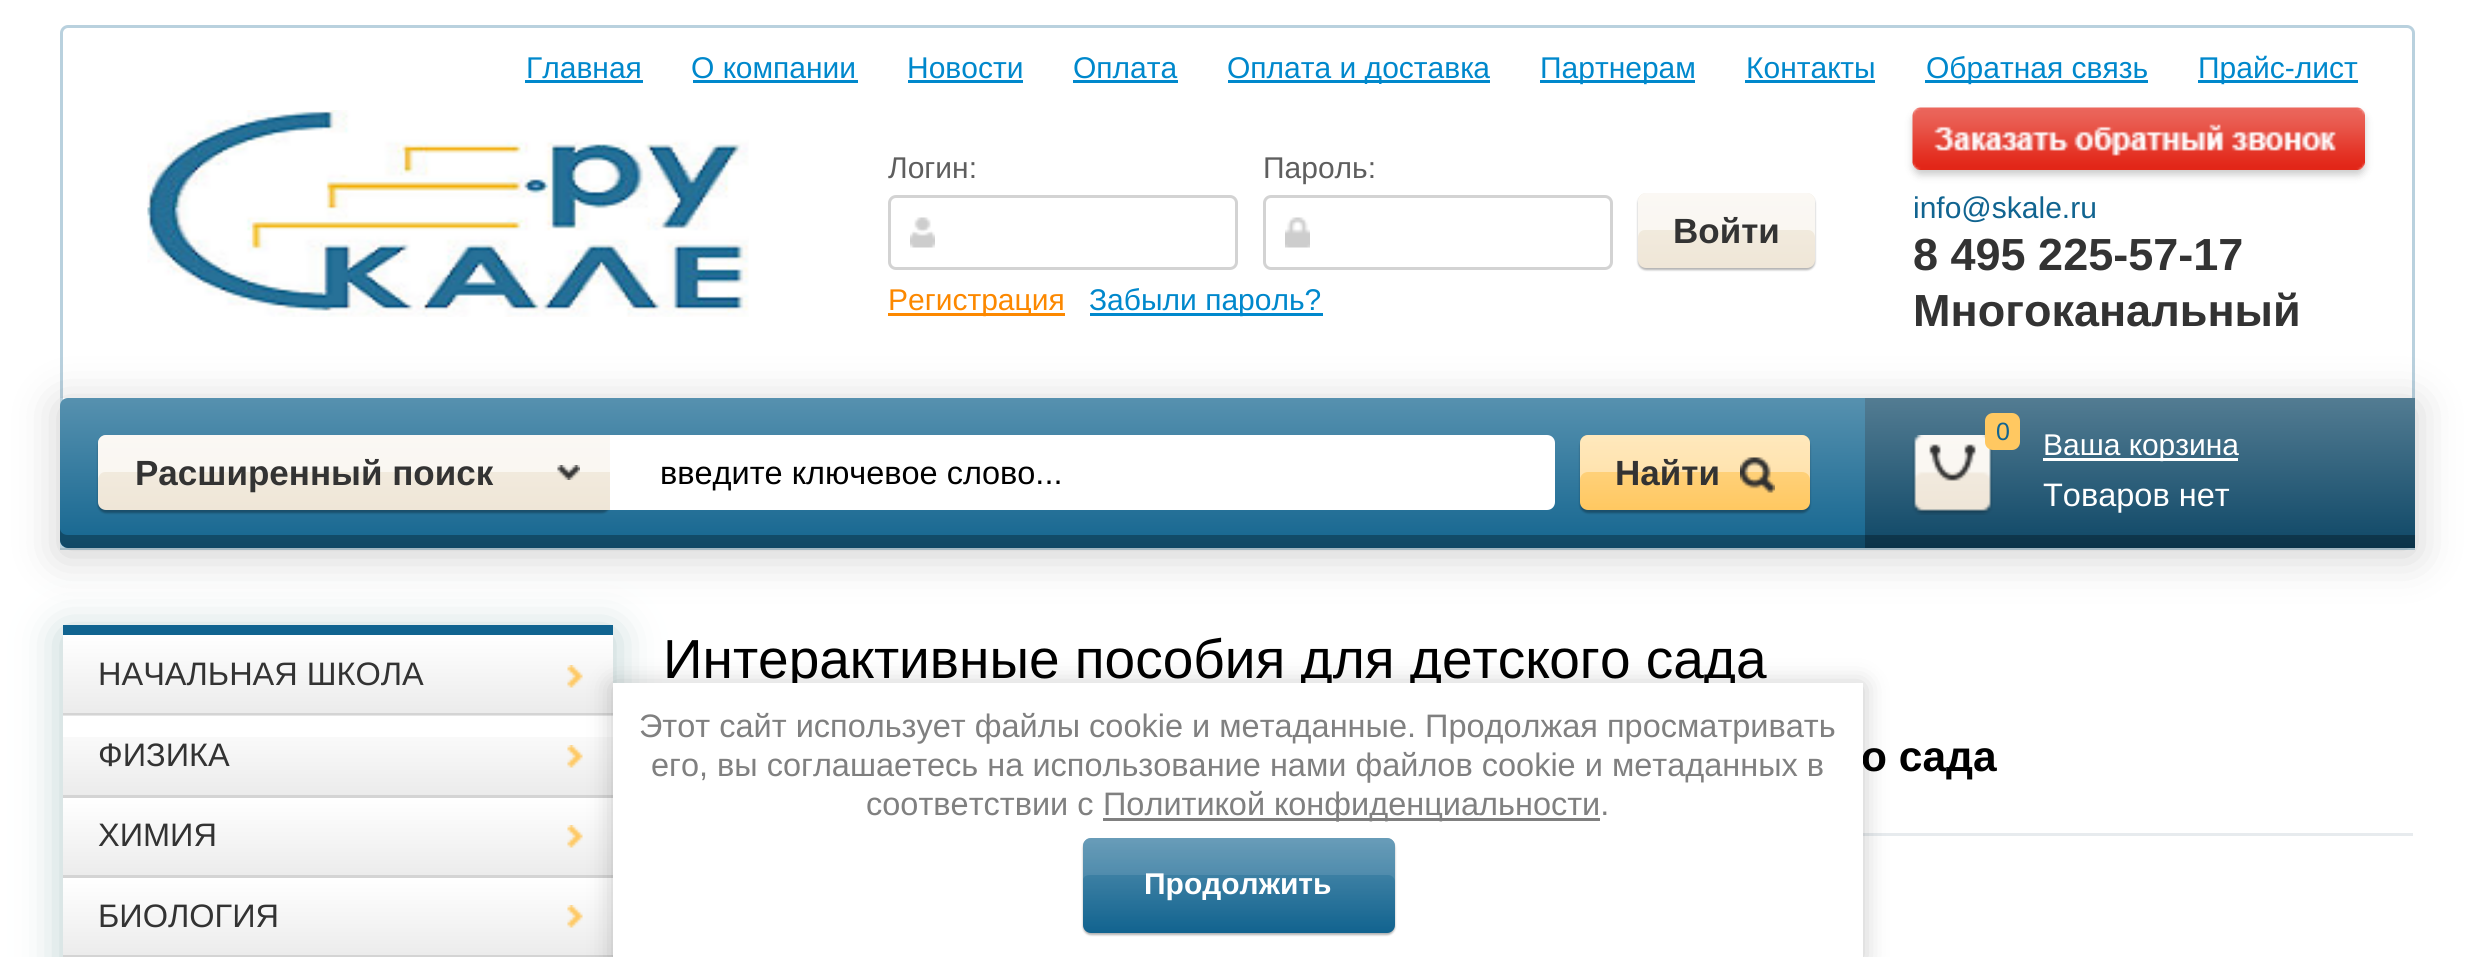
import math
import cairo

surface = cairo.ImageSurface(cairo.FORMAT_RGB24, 2473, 957)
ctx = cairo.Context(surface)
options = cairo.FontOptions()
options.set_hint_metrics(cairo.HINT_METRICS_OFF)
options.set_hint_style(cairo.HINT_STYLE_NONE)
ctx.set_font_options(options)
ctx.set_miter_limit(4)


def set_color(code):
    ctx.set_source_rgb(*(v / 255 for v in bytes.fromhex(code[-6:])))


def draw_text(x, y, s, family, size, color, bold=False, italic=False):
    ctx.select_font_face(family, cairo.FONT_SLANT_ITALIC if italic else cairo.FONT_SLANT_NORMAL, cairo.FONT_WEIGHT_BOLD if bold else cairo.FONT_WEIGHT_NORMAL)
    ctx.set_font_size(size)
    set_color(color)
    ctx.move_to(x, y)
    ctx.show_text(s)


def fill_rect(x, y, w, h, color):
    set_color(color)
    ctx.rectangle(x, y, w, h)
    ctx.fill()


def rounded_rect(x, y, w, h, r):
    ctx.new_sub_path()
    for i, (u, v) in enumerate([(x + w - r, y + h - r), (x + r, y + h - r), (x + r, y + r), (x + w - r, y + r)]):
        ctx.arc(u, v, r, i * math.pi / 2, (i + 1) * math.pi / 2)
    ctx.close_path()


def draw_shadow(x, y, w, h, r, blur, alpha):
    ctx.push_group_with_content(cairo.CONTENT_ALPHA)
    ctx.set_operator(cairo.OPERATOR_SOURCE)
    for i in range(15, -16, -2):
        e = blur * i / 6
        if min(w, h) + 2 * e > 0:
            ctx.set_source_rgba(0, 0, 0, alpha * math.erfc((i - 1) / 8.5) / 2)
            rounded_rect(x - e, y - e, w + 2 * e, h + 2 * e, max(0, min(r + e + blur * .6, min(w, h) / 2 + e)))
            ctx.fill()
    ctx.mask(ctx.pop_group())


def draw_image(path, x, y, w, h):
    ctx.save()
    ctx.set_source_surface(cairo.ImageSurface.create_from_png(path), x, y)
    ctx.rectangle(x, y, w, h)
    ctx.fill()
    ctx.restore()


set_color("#ffffff")
ctx.paint()
ctx.new_path()
ctx.move_to(68, 26.5)
ctx.line_to(2407, 26.5)
ctx.curve_to(2410.5, 26.5, 2413.5, 29.5, 2413.5, 33)
ctx.line_to(2413.5, 548.5)
ctx.line_to(61.5, 548.5)
ctx.line_to(61.5, 33)
ctx.curve_to(61.5, 29.5, 64.5, 26.5, 68, 26.5)
ctx.close_path()
set_color("#b9d1de")
ctx.set_line_width(3)
ctx.stroke()
draw_text(526, 78, "Главная", "Liberation Sans", 30, "#0088cc")
fill_rect(525, 80, 118, 3, "#0088cc")
draw_text(691, 78, "О компании", "Liberation Sans", 30, "#0088cc")
fill_rect(693, 80, 165, 3, "#0088cc")
draw_text(907, 78, "Новости", "Liberation Sans", 30, "#0088cc")
fill_rect(908, 80, 115, 3, "#0088cc")
draw_text(1073, 78, "Оплата", "Liberation Sans", 30, "#0088cc")
fill_rect(1073, 80, 105, 3, "#0088cc")
fill_rect(1228, 80, 262, 3, "#0088cc")
draw_text(1227, 78, "Оплата и доставка", "Liberation Sans", 30, "#0088cc")
fill_rect(1540, 80, 155, 3, "#0088cc")
draw_text(1540, 78, "Партнерам", "Liberation Sans", 30, "#0088cc")
draw_text(1746, 78, "Контакты", "Liberation Sans", 30, "#0088cc")
fill_rect(1745, 80, 130, 3, "#0088cc")
fill_rect(1925, 80, 223, 3, "#0088cc")
draw_text(1926, 78, "Обратная связь", "Liberation Sans", 30, "#0088cc")
fill_rect(2198, 80, 160, 3, "#0088cc")
draw_text(2198, 78, "Прайс-лист", "Liberation Sans", 30, "#0088cc")
draw_image("assets/img1.png", 147, 110, 602, 207)
draw_text(888, 178, "Логин:", "Liberation Sans", 30, "#5e5e5e")
rounded_rect(889.5, 196.5, 347, 72, 6.5)
set_color("#d3d3d3")
ctx.stroke()
draw_image("assets/img2.png", 910, 217, 25, 31)
draw_text(1263, 178, "Пароль:", "Liberation Sans", 30, "#5e5e5e")
rounded_rect(1264.5, 196.5, 347, 72, 6.5)
set_color("#d3d3d3")
ctx.stroke()
draw_image("assets/img3.png", 1285, 217, 25, 31)
set_color("#000000")
draw_shadow(1638, 195, 177, 75, 8, 1, 0.3)
gradient = cairo.LinearGradient(1726, 193, 1726, 268)
gradient.add_color_stop_rgba(0, 0.957, 0.933, 0.89, 1)
gradient.add_color_stop_rgba(1, 0.937, 0.902, 0.843, 1)
ctx.set_source(gradient)
rounded_rect(1638, 193, 177, 75, 8)
ctx.fill()
ctx.set_source_rgba(1, 1, 1, 0.6)
ctx.new_path()
ctx.move_to(1645, 230)
ctx.line_to(1808, 230)
ctx.curve_to(1812, 230, 1815, 233, 1815, 238)
ctx.line_to(1815, 201)
ctx.curve_to(1815, 197, 1811, 193, 1807, 193)
ctx.line_to(1646, 193)
ctx.curve_to(1642, 193, 1638, 197, 1638, 201)
ctx.line_to(1638, 238)
ctx.curve_to(1638, 233, 1641, 230, 1645, 230)
ctx.close_path()
ctx.fill()
draw_text(1673, 243, "Войти", "Liberation Sans", 35, "#333333", bold=True)
fill_rect(888, 313, 177, 3, "#fc8800")
draw_text(888, 310, "Регистрация", "Liberation Sans", 30, "#fc8800")
fill_rect(1090, 313, 233, 3, "#0088cc")
draw_text(1089, 310, "Забыли пароль?", "Liberation Sans", 30, "#0088cc")
ctx.save()
ctx.set_fill_rule(cairo.FILL_RULE_EVEN_ODD)
ctx.new_path()
ctx.move_to(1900, 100)
ctx.line_to(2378, 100)
ctx.line_to(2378, 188)
ctx.line_to(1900, 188)
ctx.close_path()
ctx.move_to(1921, 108)
ctx.line_to(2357, 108)
ctx.curve_to(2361.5, 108, 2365, 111.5, 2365, 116)
ctx.line_to(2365, 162)
ctx.curve_to(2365, 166.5, 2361.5, 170, 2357, 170)
ctx.line_to(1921, 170)
ctx.curve_to(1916.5, 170, 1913, 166.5, 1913, 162)
ctx.line_to(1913, 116)
ctx.curve_to(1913, 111.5, 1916.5, 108, 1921, 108)
ctx.close_path()
ctx.clip()
set_color("#000000")
draw_shadow(1913, 113, 452, 62, 8, 4, 0.2)
ctx.restore()
draw_image("assets/img4.png", 1912, 107, 453, 63)
draw_text(1913, 218, "info@skale.ru", "Liberation Sans", 30, "#116490")
draw_text(1913, 270, "8 495 225-57-17", "Liberation Sans", 45, "#333333", bold=True)
draw_text(1913, 326, "Многоканальный", "Liberation Sans", 45, "#333333", bold=True)
ctx.save()
ctx.set_fill_rule(cairo.FILL_RULE_EVEN_ODD)
ctx.new_path()
ctx.move_to(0, 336)
ctx.line_to(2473, 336)
ctx.line_to(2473, 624)
ctx.line_to(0, 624)
ctx.close_path()
ctx.move_to(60, 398)
ctx.line_to(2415, 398)
ctx.line_to(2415, 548)
ctx.line_to(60, 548)
ctx.close_path()
ctx.clip()
set_color("#000000")
draw_shadow(60, 405, 2355, 150, 0, 22.5, 0.2)
ctx.restore()
gradient = cairo.LinearGradient(963, 397, 963, 548)
gradient.add_color_stop_rgba(0, 0.341, 0.569, 0.686, 1)
gradient.add_color_stop_rgba(1, 0.082, 0.4, 0.565, 1)
ctx.set_source(gradient)
ctx.new_path()
ctx.move_to(68, 398)
ctx.line_to(1865, 398)
ctx.line_to(1865, 548)
ctx.line_to(68, 548)
ctx.curve_to(63.5, 548, 60, 544.5, 60, 540)
ctx.line_to(60, 406)
ctx.curve_to(60, 401.5, 63.5, 398, 68, 398)
ctx.close_path()
ctx.fill()
ctx.set_source_rgba(0, 0, 0, 0.29)
ctx.new_path()
ctx.move_to(60, 528)
ctx.line_to(60, 540)
ctx.curve_to(60, 544, 64, 548, 68, 548)
ctx.line_to(1865, 548)
ctx.line_to(1865, 535)
ctx.line_to(68, 535)
ctx.curve_to(63, 535, 60, 532, 60, 528)
ctx.close_path()
ctx.fill()
set_color("#000000")
draw_shadow(98, 438, 512, 75, 8, 1, 0.3)
gradient = cairo.LinearGradient(354, 435, 354, 510)
gradient.add_color_stop_rgba(0, 0.957, 0.933, 0.89, 1)
gradient.add_color_stop_rgba(1, 0.937, 0.902, 0.843, 1)
ctx.set_source(gradient)
ctx.new_path()
ctx.move_to(106, 435)
ctx.line_to(610, 435)
ctx.line_to(610, 510)
ctx.line_to(106, 510)
ctx.curve_to(101.5, 510, 98, 506.5, 98, 502)
ctx.line_to(98, 443)
ctx.curve_to(98, 438.5, 101.5, 435, 106, 435)
ctx.close_path()
ctx.fill()
ctx.set_source_rgba(1, 1, 1, 0.6)
ctx.new_path()
ctx.move_to(105, 472)
ctx.line_to(610, 472)
ctx.line_to(610, 435)
ctx.line_to(106, 435)
ctx.curve_to(102, 435, 98, 439, 98, 443)
ctx.line_to(98, 480)
ctx.curve_to(98, 476, 101, 472, 105, 472)
ctx.close_path()
ctx.fill()
draw_text(135, 485, "Расширенный поиск", "Liberation Sans", 35, "#333333", bold=True)
draw_image("assets/img5.png", 557, 465, 23, 15)
set_color("#ffffff")
ctx.new_path()
ctx.move_to(610, 435)
ctx.line_to(1547, 435)
ctx.curve_to(1551.5, 435, 1555, 438.5, 1555, 443)
ctx.line_to(1555, 502)
ctx.curve_to(1555, 506.5, 1551.5, 510, 1547, 510)
ctx.line_to(610, 510)
ctx.close_path()
ctx.fill()
draw_text(660, 484, "введите ключевое слово...", "Liberation Sans", 32.5, "#000000")
set_color("#000000")
draw_shadow(1580, 438, 230, 75, 8, 1, 0.3)
gradient = cairo.LinearGradient(1695, 435, 1695, 510)
gradient.add_color_stop_rgba(0, 1, 0.851, 0.565, 1)
gradient.add_color_stop_rgba(1, 1, 0.784, 0.38, 1)
ctx.set_source(gradient)
rounded_rect(1580, 435, 230, 75, 8)
ctx.fill()
ctx.set_source_rgba(1, 1, 1, 0.4)
ctx.new_path()
ctx.move_to(1588, 472)
ctx.line_to(1802, 472)
ctx.curve_to(1807, 472, 1810, 476, 1810, 480)
ctx.line_to(1810, 443)
ctx.curve_to(1810, 439, 1806, 435, 1802, 435)
ctx.line_to(1588, 435)
ctx.curve_to(1584, 435, 1580, 439, 1580, 443)
ctx.line_to(1580, 480)
ctx.curve_to(1580, 476, 1583, 472, 1588, 472)
ctx.close_path()
ctx.fill()
draw_text(1615, 485, "Найти", "Liberation Sans", 35, "#333333", bold=True)
draw_image("assets/img6.png", 1740, 457, 35, 36)
gradient = cairo.LinearGradient(2140, 398, 2140, 548)
gradient.add_color_stop_rgba(0, 0.325, 0.486, 0.573, 1)
gradient.add_color_stop_rgba(1, 0.059, 0.282, 0.404, 1)
ctx.set_source(gradient)
ctx.rectangle(1865, 398, 550, 150)
ctx.fill()
ctx.set_source_rgba(0, 0, 0, 0.29)
ctx.rectangle(1865, 535, 550, 13)
ctx.fill()
draw_image("assets/img7.png", 1912, 435, 81, 80)
set_color("#ffc861")
rounded_rect(1985, 413, 35, 37, 8)
ctx.fill()
draw_text(1996, 440, "0", "Liberation Sans", 25, "#116490")
fill_rect(2043, 458, 195, 3, "#ffffff")
draw_text(2043, 455, "Ваша корзина", "Liberation Sans", 30, "#ffffff")
draw_text(2043, 506, "Товаров нет", "Liberation Sans", 32.5, "#ffffff")
set_color("#b7cece")
draw_shadow(63, 633, 550, 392, 0, 22.5, 1)
fill_rect(63, 625, 550, 10, "#116490")
gradient = cairo.LinearGradient(338, 635, 338, 715)
gradient.add_color_stop_rgba(0, 1, 1, 1, 1)
gradient.add_color_stop_rgba(1, 0.922, 0.922, 0.922, 1)
ctx.set_source(gradient)
ctx.rectangle(63, 635, 550, 80)
ctx.fill()
fill_rect(63, 715, 550, 80, "#ffffff")
ctx.set_source_rgba(0, 0, 0, 0.1)
ctx.rectangle(63, 713, 550, 3)
ctx.fill()
draw_image("assets/img8.png", 567, 665, 16, 23)
draw_text(98, 685, "НАЧАЛЬНАЯ ШКОЛА", "Liberation Sans", 32.5, "#333333")
gradient = cairo.LinearGradient(338, 715, 338, 798)
gradient.add_color_stop_rgba(0, 0, 0, 0, 0)
gradient.add_color_stop_rgba(1, 0, 0, 0, 0.08)
ctx.set_source(gradient)
ctx.rectangle(63, 737, 550, 58)
ctx.fill()
fill_rect(63, 795, 550, 3, "#d4d4d4")
draw_image("assets/img9.png", 567, 745, 16, 23)
draw_text(98, 766, "ФИЗИКА", "Liberation Sans", 32.5, "#333333")
gradient = cairo.LinearGradient(338, 798, 338, 878)
gradient.add_color_stop_rgba(0, 1, 1, 1, 1)
gradient.add_color_stop_rgba(1, 0.922, 0.922, 0.922, 1)
ctx.set_source(gradient)
ctx.rectangle(63, 798, 550, 77)
ctx.fill()
fill_rect(63, 875, 550, 3, "#d4d4d4")
draw_image("assets/img10.png", 567, 825, 16, 23)
draw_text(98, 846, "ХИМИЯ", "Liberation Sans", 32.5, "#333333")
gradient = cairo.LinearGradient(338, 878, 338, 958)
gradient.add_color_stop_rgba(0, 1, 1, 1, 1)
gradient.add_color_stop_rgba(1, 0.922, 0.922, 0.922, 1)
ctx.set_source(gradient)
ctx.rectangle(63, 878, 550, 77)
ctx.fill()
fill_rect(63, 955, 550, 2, "#d4d4d4")
draw_image("assets/img10.png", 567, 905, 16, 23)
draw_text(98, 927, "БИОЛОГИЯ", "Liberation Sans", 32.5, "#333333")
draw_text(663, 678, "Интерактивные пособия для детского сада", "Liberation Sans", 55, "#000000")
draw_text(1861, 771, "о сада", "Liberation Sans", 42.5, "#000000", bold=True)
fill_rect(1863, 833, 550, 3, "#e7ebee")
set_color("#000000")
draw_shadow(613, 685, 1250, 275, 0, 12.5, 0.23)
fill_rect(613, 683, 1250, 274, "#ffffff")
draw_text(639, 737, "Этот сайт использует файлы cookie и метаданные. Продолжая просматривать", "Liberation Sans", 32.5, "#808080")
draw_text(651, 776, "его, вы соглашаетесь на использование нами файлов cookie и метаданных в", "Liberation Sans", 32.5, "#808080")
draw_text(866, 815, "соответствии с", "Liberation Sans", 32.5, "#808080")
fill_rect(1103, 818, 497, 3, "#808080")
draw_text(1103, 815, "Политикой конфиденциальности.", "Liberation Sans", 32.5, "#808080")
set_color("#000000")
draw_shadow(1083, 840, 312, 95, 8, 1, 0.3)
set_color("#11638f")
rounded_rect(1083, 838, 312, 95, 8)
ctx.fill()
gradient = cairo.LinearGradient(1239, 933, 1239, 838)
gradient.add_color_stop_rgba(0, 1, 1, 1, 0)
gradient.add_color_stop_rgba(1, 1, 1, 1, 0.3)
ctx.set_source(gradient)
rounded_rect(1083, 838, 312, 95, 8)
ctx.fill()
ctx.set_source_rgba(1, 1, 1, 0.1)
ctx.new_path()
ctx.move_to(1090, 875)
ctx.line_to(1388, 875)
ctx.curve_to(1392, 875, 1395, 878, 1395, 882)
ctx.line_to(1395, 846)
ctx.curve_to(1395, 842, 1391, 838, 1387, 838)
ctx.line_to(1091, 838)
ctx.curve_to(1087, 838, 1083, 842, 1083, 846)
ctx.line_to(1083, 879)
ctx.curve_to(1084, 876, 1087, 875, 1090, 875)
ctx.close_path()
ctx.fill()
draw_text(1144, 894, "Продолжить", "Liberation Sans", 30, "#ffffff", bold=True)
surface.write_to_png("output.png")
